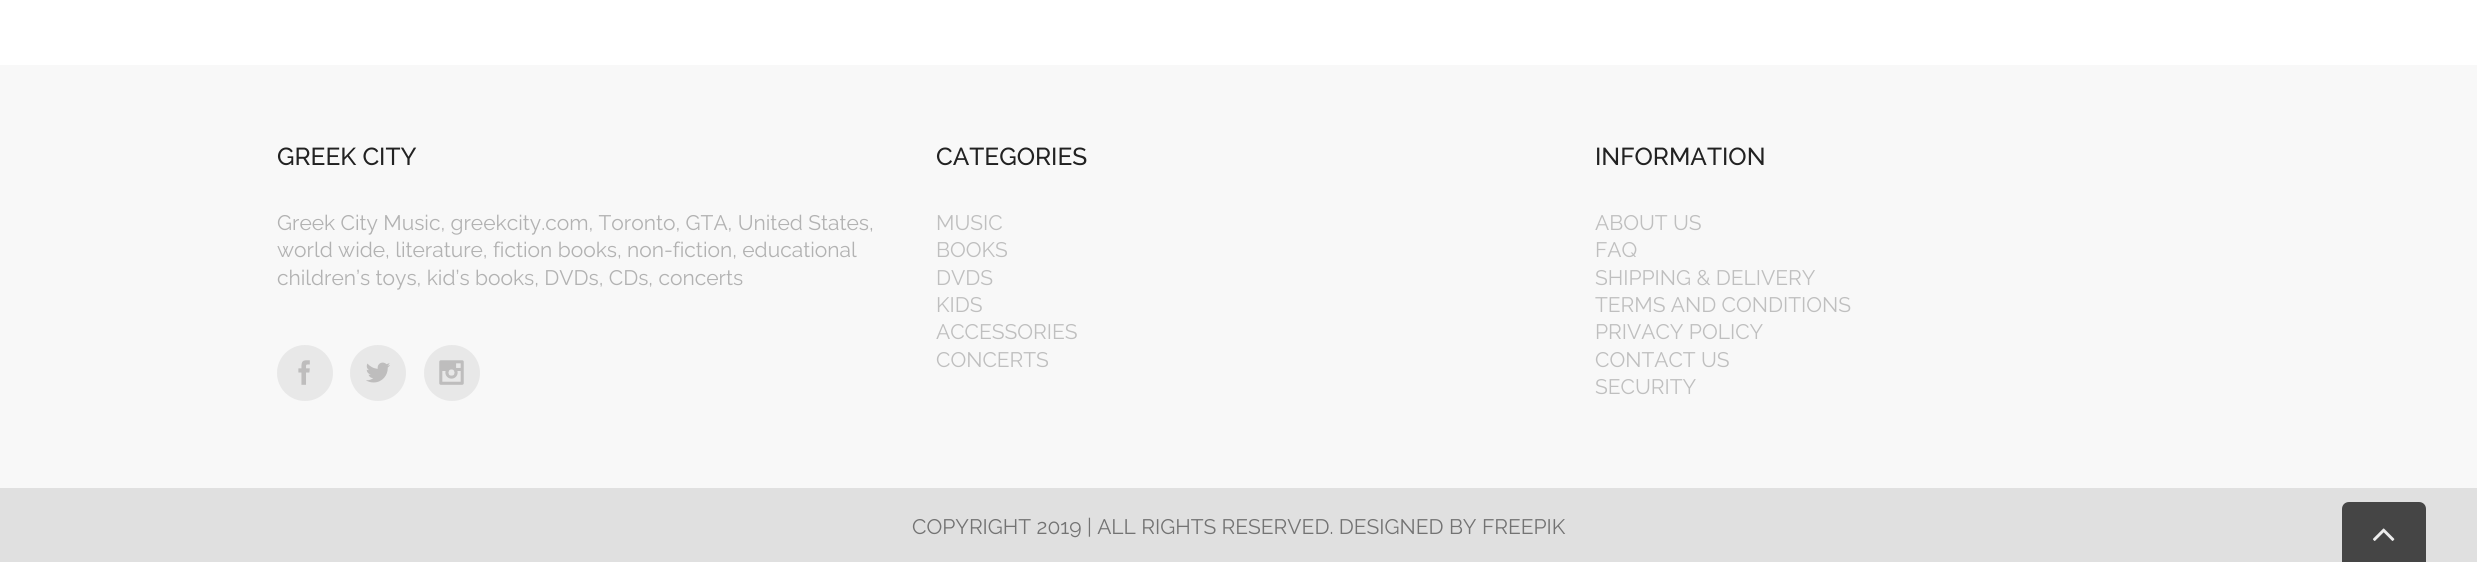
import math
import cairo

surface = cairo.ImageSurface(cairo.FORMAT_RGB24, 2477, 562)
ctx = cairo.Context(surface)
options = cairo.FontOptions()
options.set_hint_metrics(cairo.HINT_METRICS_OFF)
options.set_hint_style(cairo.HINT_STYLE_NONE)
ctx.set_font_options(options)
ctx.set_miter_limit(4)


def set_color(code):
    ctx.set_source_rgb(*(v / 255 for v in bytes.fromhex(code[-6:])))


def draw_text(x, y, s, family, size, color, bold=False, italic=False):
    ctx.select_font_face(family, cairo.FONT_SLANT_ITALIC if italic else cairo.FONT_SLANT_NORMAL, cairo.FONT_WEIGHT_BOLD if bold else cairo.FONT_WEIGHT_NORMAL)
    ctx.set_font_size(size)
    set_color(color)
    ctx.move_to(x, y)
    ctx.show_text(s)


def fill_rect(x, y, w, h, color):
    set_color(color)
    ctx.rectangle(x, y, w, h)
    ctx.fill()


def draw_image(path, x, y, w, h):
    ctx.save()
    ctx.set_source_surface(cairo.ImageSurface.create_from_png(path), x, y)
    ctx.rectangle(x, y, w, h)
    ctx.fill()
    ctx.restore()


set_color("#ffffff")
ctx.paint()
fill_rect(0, 65, 2477, 423, "#f8f8f8")
draw_text(277, 165, "GREEK CITY", "Raleway Medium", 24.5, "#222222")
draw_text(277, 230, "Greek City Music, greekcity.com, Toronto, GTA, United States,", "Raleway", 21, "#b2b2b2")
draw_text(277, 257, "world wide, literature, fiction books, non-fiction, educational", "Raleway", 21, "#b2b2b2")
draw_text(277, 285, "children’s toys, kid’s books, DVDs, CDs, concerts", "Raleway", 21, "#b2b2b2")
set_color("#e8e8e8")
ctx.new_path()
ctx.arc(305, 373, 27, 0, 2 * math.pi)
ctx.fill_preserve()
ctx.stroke()
draw_image("assets/img1.png", 298, 360, 12, 25)
ctx.arc(378, 373, 27, 0, 2 * math.pi)
ctx.fill_preserve()
ctx.stroke()
draw_image("assets/img2.png", 366, 362, 24, 21)
ctx.arc(452, 373, 27, 0, 2 * math.pi)
ctx.fill_preserve()
ctx.stroke()
draw_image("assets/img3.png", 439, 360, 25, 25)
draw_text(936, 165, "CATEGORIES", "Raleway Medium", 24.5, "#222222")
draw_text(936, 230, "MUSIC", "Raleway", 21, "#bfbfbf")
draw_text(936, 257, "BOOKS", "Raleway", 21, "#bfbfbf")
draw_text(936, 285, "DVDS", "Raleway", 21, "#bfbfbf")
draw_text(936, 312, "KIDS", "Raleway", 21, "#bfbfbf")
draw_text(936, 339, "ACCESSORIES", "Raleway", 21, "#bfbfbf")
draw_text(936, 367, "CONCERTS", "Raleway", 21, "#bfbfbf")
draw_text(1595, 165, "INFORMATION", "Raleway Medium", 24.5, "#222222")
draw_text(1595, 230, "ABOUT US", "Raleway", 21, "#bfbfbf")
draw_text(1595, 257, "FAQ", "Raleway", 21, "#bfbfbf")
draw_text(1595, 285, "SHIPPING & DELIVERY", "Raleway", 21, "#bfbfbf")
draw_text(1595, 312, "TERMS AND CONDITIONS", "Raleway", 21, "#bfbfbf")
draw_text(1595, 339, "PRIVACY POLICY", "Raleway", 21, "#bfbfbf")
draw_text(1595, 367, "CONTACT US", "Raleway", 21, "#bfbfbf")
draw_text(1595, 394, "SECURITY", "Raleway", 21, "#bfbfbf")
fill_rect(0, 488, 2477, 74, "#e0e0e0")
draw_text(912, 534, "COPYRIGHT 2019 | ALL RIGHTS RESERVED. DESIGNED BY FREEPIK", "Raleway", 21, "#737373")
set_color("#454545")
ctx.new_path()
ctx.move_to(2349, 502)
ctx.line_to(2419, 502)
ctx.curve_to(2423, 502, 2426, 505, 2426, 509)
ctx.line_to(2426, 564)
ctx.line_to(2342, 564)
ctx.line_to(2342, 509)
ctx.curve_to(2342, 505, 2345, 502, 2349, 502)
ctx.close_path()
ctx.fill()
draw_image("assets/img4.png", 2373, 528, 22, 13)
surface.write_to_png("output.png")
